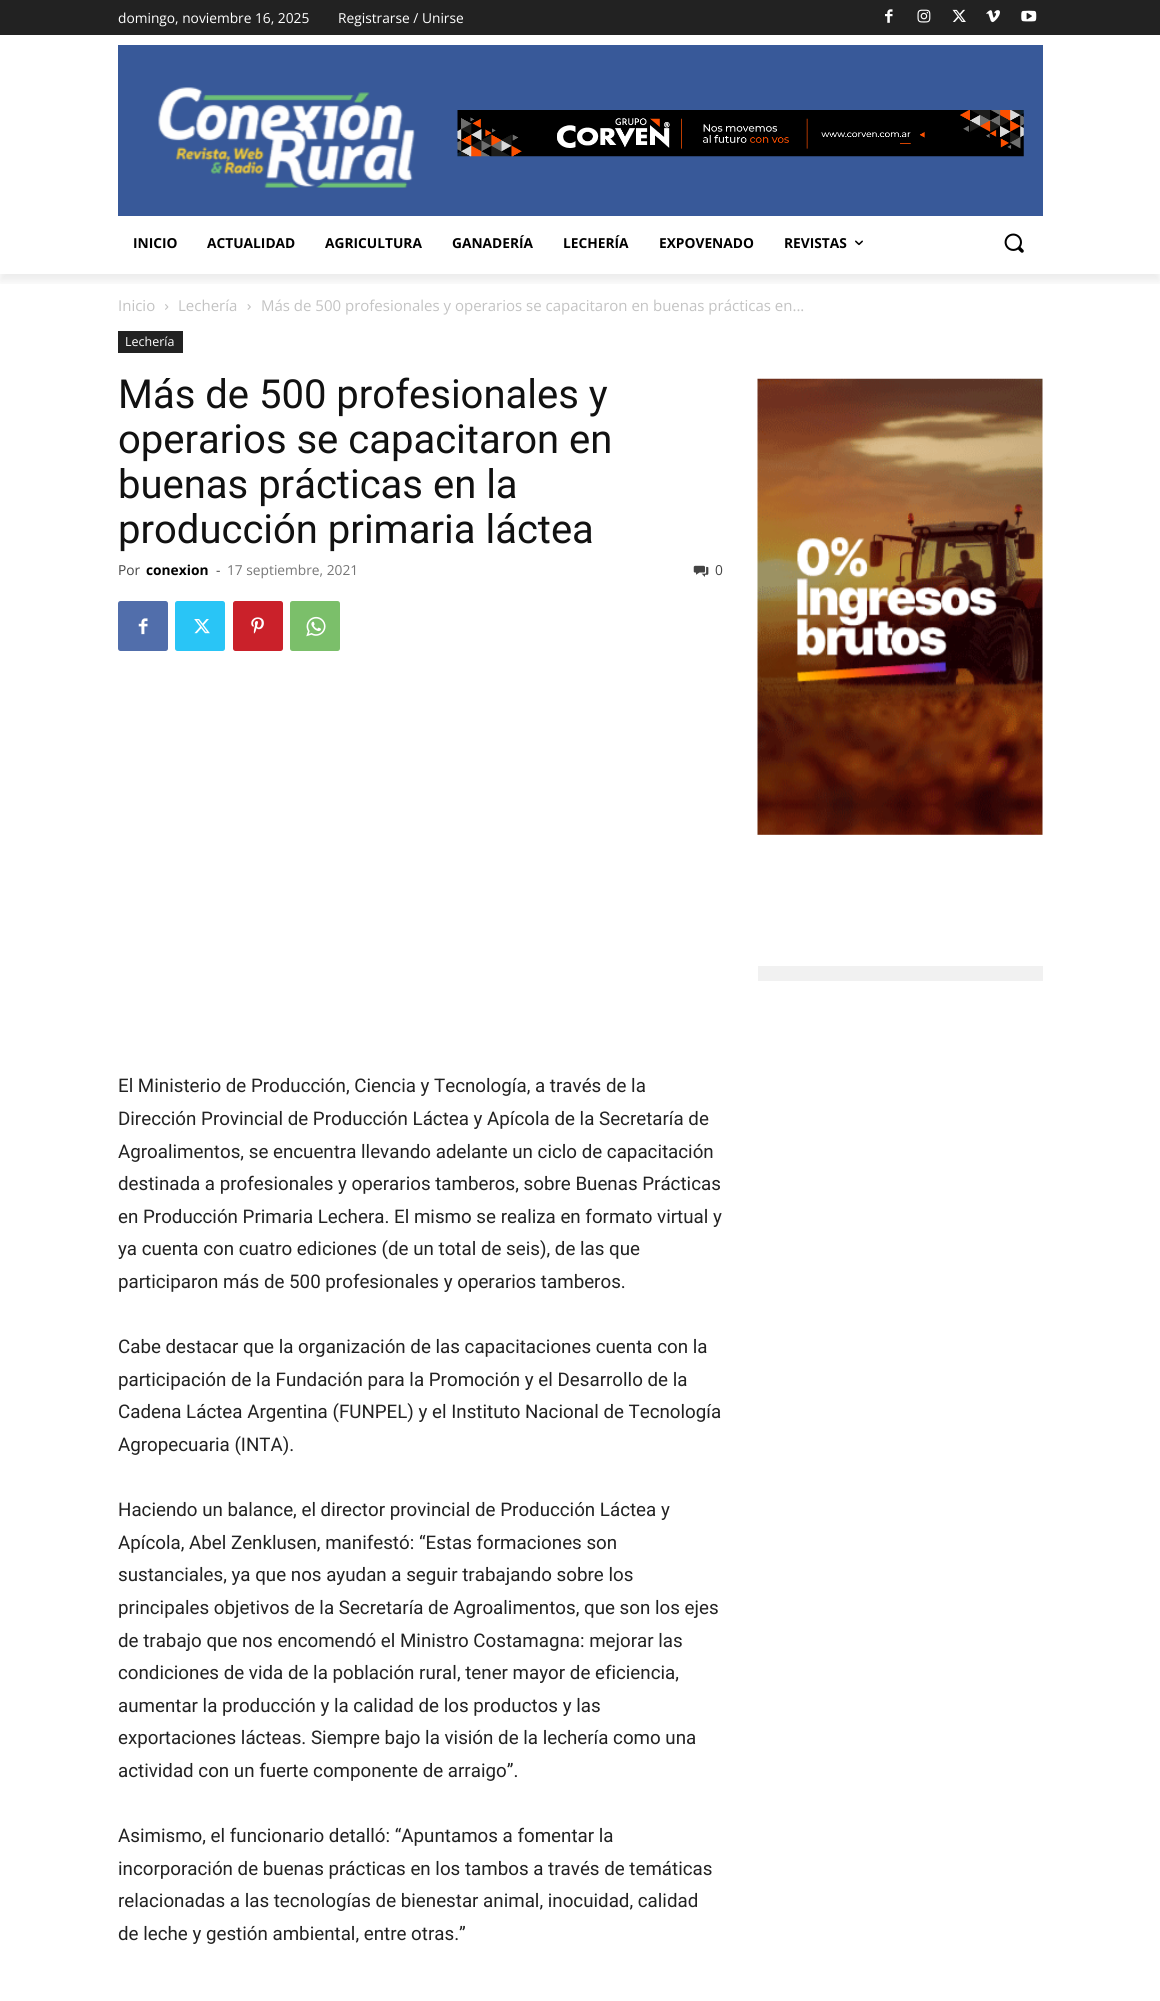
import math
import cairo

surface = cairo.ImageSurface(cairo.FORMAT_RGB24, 1160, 2001)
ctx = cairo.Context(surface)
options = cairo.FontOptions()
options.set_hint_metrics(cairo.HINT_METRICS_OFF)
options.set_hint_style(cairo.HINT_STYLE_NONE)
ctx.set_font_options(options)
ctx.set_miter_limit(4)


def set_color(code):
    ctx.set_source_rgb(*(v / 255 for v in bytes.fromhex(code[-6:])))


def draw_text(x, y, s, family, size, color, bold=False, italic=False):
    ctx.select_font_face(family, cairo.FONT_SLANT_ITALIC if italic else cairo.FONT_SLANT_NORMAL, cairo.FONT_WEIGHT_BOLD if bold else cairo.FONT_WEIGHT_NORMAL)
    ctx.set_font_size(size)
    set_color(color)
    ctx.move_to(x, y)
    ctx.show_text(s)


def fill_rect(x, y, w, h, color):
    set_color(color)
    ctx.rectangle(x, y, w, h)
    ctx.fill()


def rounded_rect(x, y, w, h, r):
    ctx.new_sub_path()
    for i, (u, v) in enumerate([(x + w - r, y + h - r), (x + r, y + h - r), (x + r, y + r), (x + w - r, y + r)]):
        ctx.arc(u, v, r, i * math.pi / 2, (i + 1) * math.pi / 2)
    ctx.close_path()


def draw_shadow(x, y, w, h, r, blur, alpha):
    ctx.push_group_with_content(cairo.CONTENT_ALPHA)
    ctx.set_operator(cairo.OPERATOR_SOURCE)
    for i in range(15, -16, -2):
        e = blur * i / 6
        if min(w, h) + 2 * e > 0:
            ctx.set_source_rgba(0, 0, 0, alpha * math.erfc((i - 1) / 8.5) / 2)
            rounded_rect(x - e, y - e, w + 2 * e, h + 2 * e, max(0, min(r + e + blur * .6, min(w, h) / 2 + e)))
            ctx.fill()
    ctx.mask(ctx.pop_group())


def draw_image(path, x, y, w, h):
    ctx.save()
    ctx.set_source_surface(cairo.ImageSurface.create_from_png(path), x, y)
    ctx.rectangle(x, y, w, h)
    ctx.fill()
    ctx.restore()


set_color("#ffffff")
ctx.paint()
fill_rect(0, 0, 1160, 35, "#222222")
draw_image("assets/img1.png", 885, 9, 8, 14)
draw_image("assets/img2.png", 917, 9, 14, 14)
draw_image("assets/img3.png", 952, 9, 14, 13)
draw_image("assets/img4.png", 986, 10, 14, 13)
draw_image("assets/img5.png", 1021, 10, 16, 12)
fill_rect(118, 45, 925, 171, "#385999")
draw_image("assets/img6.png", 158, 87, 257, 101)
draw_image("assets/img7.png", 457, 110, 567, 47)
ctx.save()
ctx.rectangle(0, 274, 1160, 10)
ctx.clip()
set_color("#000000")
draw_shadow(0, 8, 1160, 273, 0, 5, 0.08)
ctx.restore()
draw_text(118, 23, "domingo, noviembre 16, 2025", "Open Sans", 13.75, "#ffffff")
draw_text(338, 23, "Registrarse / Unirse", "Open Sans", 13.75, "#ffffff")
draw_text(133, 248, "INICIO", "Open Sans", 13.75, "#000000", bold=True)
draw_text(207, 248, "ACTUALIDAD", "Open Sans", 13.75, "#000000", bold=True)
draw_text(325, 248, "AGRICULTURA", "Open Sans", 13.75, "#000000", bold=True)
draw_text(452, 248, "GANADERÍA", "Open Sans", 13.75, "#000000", bold=True)
draw_text(563, 248, "LECHERÍA", "Open Sans", 13.75, "#000000", bold=True)
draw_text(659, 248, "EXPOVENADO", "Open Sans", 13.75, "#000000", bold=True)
draw_text(784, 248, "REVISTAS", "Open Sans", 13.75, "#000000", bold=True)
draw_image("assets/img8.png", 855, 240, 8, 6)
draw_image("assets/img9.png", 1004, 233, 20, 20)
draw_text(118, 311, "Inicio", "Open Sans", 15, "#c3c3c3")
draw_image("assets/img10.png", 165, 304, 4, 6)
draw_text(178, 311, "Lechería", "Open Sans", 15, "#c3c3c3")
draw_image("assets/img11.png", 247, 304, 4, 6)
draw_text(261, 311, "Más de 500 profesionales y operarios se capacitaron en buenas prácticas en...", "Open Sans", 15, "#c3c3c3")
fill_rect(118, 331, 65, 22, "#222222")
draw_text(125, 346, "Lechería", "Open Sans", 12.5, "#ffffff")
draw_text(118, 408, "Más de 500 profesionales y", "Roboto", 40, "#111111")
draw_text(118, 453, "operarios se capacitaron en", "Roboto", 40, "#111111")
draw_text(118, 498, "buenas prácticas en la", "Roboto", 40, "#111111")
draw_text(118, 543, "producción primaria láctea", "Roboto", 40, "#111111")
draw_text(118, 575, "Por", "Open Sans", 13.75, "#444444")
draw_text(146, 575, "conexion", "Open Sans", 13.75, "#000000", bold=True)
draw_text(216, 575, "-", "Open Sans", 13.75, "#444444")
draw_text(227, 575, "17 septiembre, 2021", "Open Sans", 13.75, "#767676")
draw_image("assets/img12.png", 693, 565, 16, 12)
draw_text(715, 575, "0", "Open Sans", 13.75, "#444444")
set_color("#516eab")
rounded_rect(118, 601, 50, 50, 2.5)
ctx.fill()
draw_image("assets/img13.png", 138, 618, 10, 17)
set_color("#29c5f6")
rounded_rect(175, 601, 50, 50, 2.5)
ctx.fill()
draw_image("assets/img14.png", 194, 619, 16, 15)
set_color("#ca212a")
rounded_rect(233, 601, 50, 50, 2.5)
ctx.fill()
draw_image("assets/img15.png", 251, 617, 13, 17)
set_color("#7bbf6a")
rounded_rect(290, 601, 50, 50, 2.5)
ctx.fill()
draw_image("assets/img16.png", 306, 616, 20, 21)
draw_text(118, 1092, "El Ministerio de Producción, Ciencia y Tecnología, a través de la", "Roboto", 18.75, "#222222")
draw_text(118, 1125, "Dirección Provincial de Producción Láctea y Apícola de la Secretaría de", "Roboto", 18.75, "#222222")
draw_text(118, 1158, "Agroalimentos, se encuentra llevando adelante un ciclo de capacitación", "Roboto", 18.75, "#222222")
draw_text(118, 1190, "destinada a profesionales y operarios tamberos, sobre Buenas Prácticas", "Roboto", 18.75, "#222222")
draw_text(118, 1223, "en Producción Primaria Lechera. El mismo se realiza en formato virtual y", "Roboto", 18.75, "#222222")
draw_text(118, 1255, "ya cuenta con cuatro ediciones (de un total de seis), de las que", "Roboto", 18.75, "#222222")
draw_text(118, 1288, "participaron más de 500 profesionales y operarios tamberos.", "Roboto", 18.75, "#222222")
draw_text(118, 1353, "Cabe destacar que la organización de las capacitaciones cuenta con la", "Roboto", 18.75, "#222222")
draw_text(118, 1386, "participación de la Fundación para la Promoción y el Desarrollo de la", "Roboto", 18.75, "#222222")
draw_text(118, 1418, "Cadena Láctea Argentina (FUNPEL) y el Instituto Nacional de Tecnología", "Roboto", 18.75, "#222222")
draw_text(118, 1451, "Agropecuaria (INTA).", "Roboto", 18.75, "#222222")
draw_text(118, 1516, "Haciendo un balance, el director provincial de Producción Láctea y", "Roboto", 18.75, "#222222")
draw_text(118, 1549, "Apícola, Abel Zenklusen, manifestó: “Estas formaciones son", "Roboto", 18.75, "#222222")
draw_text(118, 1581, "sustanciales, ya que nos ayudan a seguir trabajando sobre los", "Roboto", 18.75, "#222222")
draw_text(118, 1614, "principales objetivos de la Secretaría de Agroalimentos, que son los ejes", "Roboto", 18.75, "#222222")
draw_text(118, 1647, "de trabajo que nos encomendó el Ministro Costamagna: mejorar las", "Roboto", 18.75, "#222222")
draw_text(118, 1679, "condiciones de vida de la población rural, tener mayor de eficiencia,", "Roboto", 18.75, "#222222")
draw_text(118, 1712, "aumentar la producción y la calidad de los productos y las", "Roboto", 18.75, "#222222")
draw_text(118, 1744, "exportaciones lácteas. Siempre bajo la visión de la lechería como una", "Roboto", 18.75, "#222222")
draw_text(118, 1777, "actividad con un fuerte componente de arraigo”.", "Roboto", 18.75, "#222222")
draw_text(118, 1842, "Asimismo, el funcionario detalló: “Apuntamos a fomentar la", "Roboto", 18.75, "#222222")
draw_text(118, 1875, "incorporación de buenas prácticas en los tambos a través de temáticas", "Roboto", 18.75, "#222222")
draw_text(118, 1907, "relacionadas a las tecnologías de bienestar animal, inocuidad, calidad", "Roboto", 18.75, "#222222")
draw_text(118, 1940, "de leche y gestión ambiental, entre otras.”", "Roboto", 18.75, "#222222")
draw_image("assets/img17.png", 757, 378, 286, 457)
fill_rect(758, 966, 285, 15, "#f1f1f1")
surface.write_to_png("output.png")
